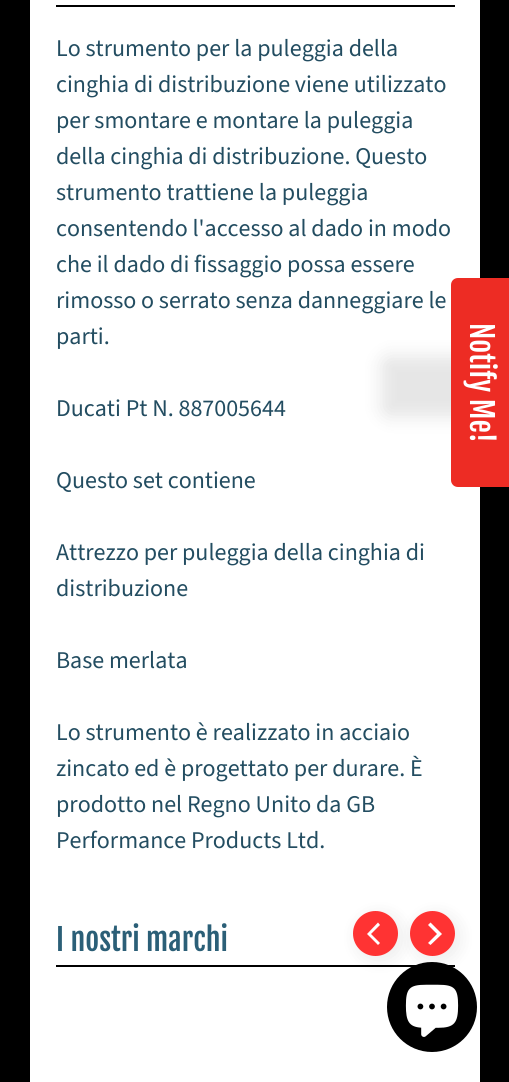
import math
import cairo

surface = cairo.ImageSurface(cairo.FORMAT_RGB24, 509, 1082)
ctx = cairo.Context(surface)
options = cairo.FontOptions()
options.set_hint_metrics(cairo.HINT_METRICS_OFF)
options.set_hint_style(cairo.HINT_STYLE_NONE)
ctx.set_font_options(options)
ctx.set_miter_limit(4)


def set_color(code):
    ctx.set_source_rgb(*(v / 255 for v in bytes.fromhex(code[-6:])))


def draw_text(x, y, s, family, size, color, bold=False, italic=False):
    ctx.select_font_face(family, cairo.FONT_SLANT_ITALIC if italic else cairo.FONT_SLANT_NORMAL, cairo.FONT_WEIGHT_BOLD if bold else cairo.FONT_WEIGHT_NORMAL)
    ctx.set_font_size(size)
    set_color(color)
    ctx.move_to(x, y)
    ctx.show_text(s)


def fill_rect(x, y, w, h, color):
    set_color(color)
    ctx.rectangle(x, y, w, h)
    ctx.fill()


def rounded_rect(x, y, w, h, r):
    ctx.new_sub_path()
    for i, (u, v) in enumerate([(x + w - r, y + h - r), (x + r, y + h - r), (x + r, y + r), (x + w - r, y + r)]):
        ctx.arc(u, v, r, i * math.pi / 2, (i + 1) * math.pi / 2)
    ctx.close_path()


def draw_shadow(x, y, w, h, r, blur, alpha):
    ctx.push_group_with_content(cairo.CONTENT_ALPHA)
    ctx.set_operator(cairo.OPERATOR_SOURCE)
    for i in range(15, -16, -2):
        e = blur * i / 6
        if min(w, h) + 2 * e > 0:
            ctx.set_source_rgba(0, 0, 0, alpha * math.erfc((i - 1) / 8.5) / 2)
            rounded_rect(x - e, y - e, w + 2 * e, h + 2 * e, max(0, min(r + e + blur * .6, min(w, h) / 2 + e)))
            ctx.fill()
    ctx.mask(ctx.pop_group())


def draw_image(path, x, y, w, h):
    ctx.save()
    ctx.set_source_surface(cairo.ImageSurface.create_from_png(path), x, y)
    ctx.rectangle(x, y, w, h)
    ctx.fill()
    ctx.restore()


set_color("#000000")
ctx.paint()
fill_rect(30, 0, 450, 1082, "#ffffff")
fill_rect(56, 5, 399, 2, "#000000")
draw_text(56, 56, "Lo strumento per la puleggia della", "Source Sans Pro", 24, "#234d61")
draw_text(56, 92, "cinghia di distribuzione viene utilizzato", "Source Sans Pro", 24, "#234d61")
draw_text(56, 128, "per smontare e montare la puleggia", "Source Sans Pro", 24, "#234d61")
draw_text(56, 164, "della cinghia di distribuzione. Questo", "Source Sans Pro", 24, "#234d61")
draw_text(56, 200, "strumento trattiene la puleggia", "Source Sans Pro", 24, "#234d61")
draw_text(56, 236, "consentendo l'accesso al dado in modo", "Source Sans Pro", 24, "#234d61")
draw_text(56, 272, "che il dado di fissaggio possa essere", "Source Sans Pro", 24, "#234d61")
draw_text(56, 308, "rimosso o serrato senza danneggiare le", "Source Sans Pro", 24, "#234d61")
draw_text(56, 344, "parti.", "Source Sans Pro", 24, "#234d61")
draw_text(56, 416, "Ducati Pt N. 887005644", "Source Sans Pro", 24, "#234d61")
draw_text(56, 488, "Questo set contiene", "Source Sans Pro", 24, "#234d61")
draw_text(56, 560, "Attrezzo per puleggia della cinghia di", "Source Sans Pro", 24, "#234d61")
draw_text(56, 596, "distribuzione", "Source Sans Pro", 24, "#234d61")
draw_text(56, 668, "Base merlata", "Source Sans Pro", 24, "#234d61")
draw_text(56, 740, "Lo strumento è realizzato in acciaio", "Source Sans Pro", 24, "#234d61")
draw_text(56, 776, "zincato ed è progettato per durare. È", "Source Sans Pro", 24, "#234d61")
draw_text(56, 812, "prodotto nel Regno Unito da GB", "Source Sans Pro", 24, "#234d61")
draw_text(56, 848, "Performance Products Ltd.", "Source Sans Pro", 24, "#234d61")
fill_rect(56, 965, 399, 2, "#000000")
draw_text(56, 951, "I nostri marchi", "Fjalla One", 30, "#2b5f77")
set_color("#000000")
draw_shadow(357, 915, 45, 45, 22.5, 9, 0.08)
set_color("#ff3333")
ctx.arc(375.5, 933.5, 22.5, 0, 2 * math.pi)
ctx.fill()
set_color("#ffffff")
ctx.new_path()
ctx.move_to(367, 934)
ctx.line_to(378, 945)
ctx.line_to(380, 943)
ctx.line_to(371, 934)
ctx.line_to(380, 925)
ctx.line_to(378, 922.5)
ctx.close_path()
ctx.fill()
ctx.save()
ctx.set_fill_rule(cairo.FILL_RULE_EVEN_ODD)
ctx.new_path()
ctx.move_to(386, 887)
ctx.line_to(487, 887)
ctx.line_to(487, 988)
ctx.line_to(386, 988)
ctx.close_path()
ctx.move_to(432.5, 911)
ctx.curve_to(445, 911, 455, 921, 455, 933.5)
ctx.curve_to(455, 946, 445, 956, 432.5, 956)
ctx.curve_to(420, 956, 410, 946, 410, 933.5)
ctx.curve_to(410, 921, 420, 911, 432.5, 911)
ctx.close_path()
ctx.clip()
set_color("#000000")
draw_shadow(414, 915, 45, 45, 22.5, 9, 0.08)
ctx.restore()
ctx.set_source_rgba(1, 0, 0, 0.8)
ctx.arc(432.5, 933.5, 22.5, 0, 2 * math.pi)
ctx.fill()
set_color("#ffffff")
ctx.new_path()
ctx.move_to(442, 934)
ctx.line_to(430.5, 922.5)
ctx.line_to(428, 925)
ctx.line_to(437, 934)
ctx.line_to(428, 943)
ctx.line_to(430.5, 945)
ctx.close_path()
ctx.fill()
set_color("#000000")
draw_shadow(381, 356, 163, 61, 8, 9, 0.1)
set_color("#ed2c24")
ctx.new_path()
ctx.move_to(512, 278)
ctx.line_to(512, 487)
ctx.line_to(458, 487)
ctx.curve_to(454, 487, 451, 484, 451, 480)
ctx.line_to(451, 285)
ctx.curve_to(451, 281, 454, 278, 458, 278)
ctx.close_path()
ctx.fill()
ctx.save()
ctx.translate(470, 323)
ctx.rotate(90 * math.pi / 180)
draw_text(0, 0, "Notify Me!", "Fjalla One", 30, "#ffffff")
ctx.restore()
set_color("#000000")
ctx.new_path()
ctx.arc(432, 1007, 45, 0, 2 * math.pi)
ctx.fill()
draw_image("assets/img1.png", 405, 984, 54, 53)
surface.write_to_png("output.png")
